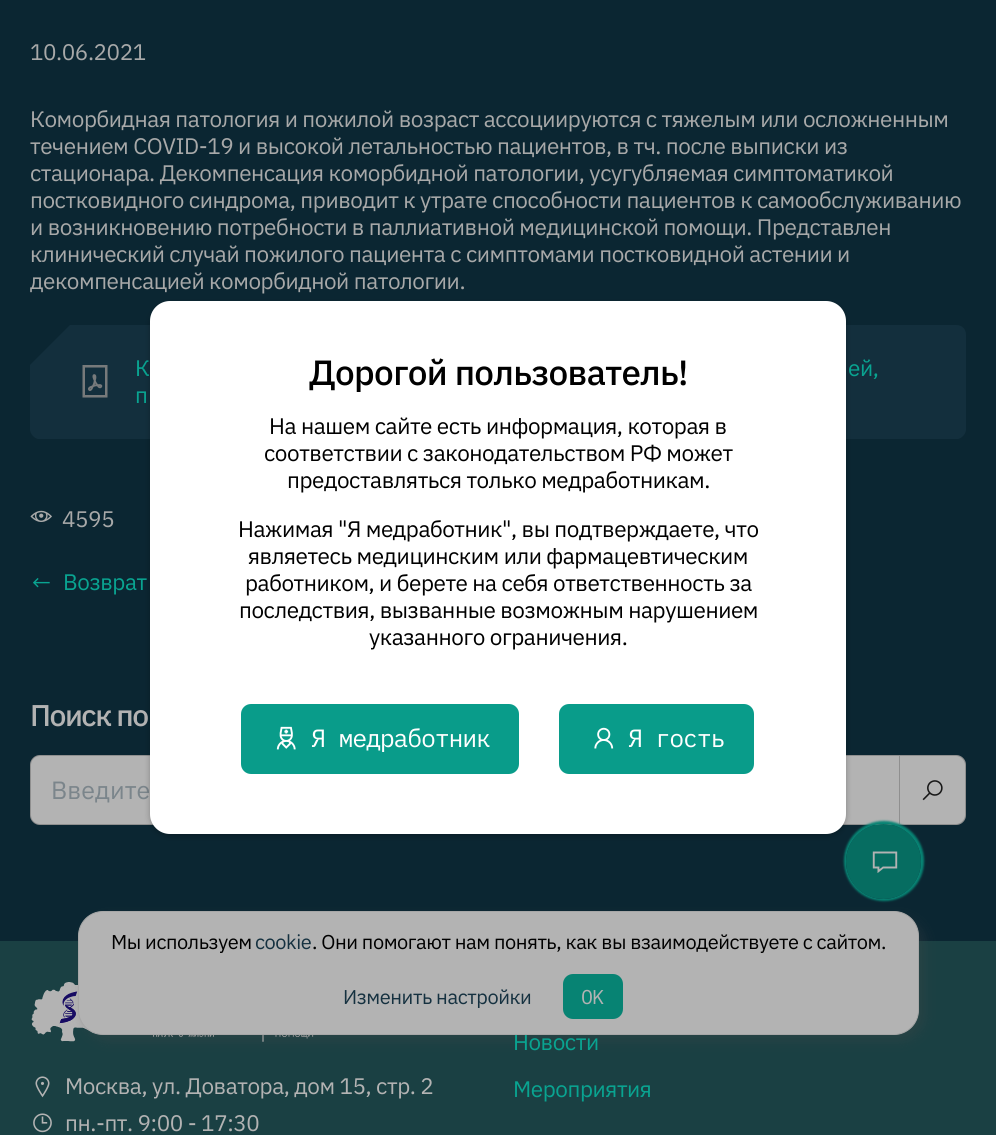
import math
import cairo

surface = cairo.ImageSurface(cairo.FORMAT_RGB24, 996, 1135)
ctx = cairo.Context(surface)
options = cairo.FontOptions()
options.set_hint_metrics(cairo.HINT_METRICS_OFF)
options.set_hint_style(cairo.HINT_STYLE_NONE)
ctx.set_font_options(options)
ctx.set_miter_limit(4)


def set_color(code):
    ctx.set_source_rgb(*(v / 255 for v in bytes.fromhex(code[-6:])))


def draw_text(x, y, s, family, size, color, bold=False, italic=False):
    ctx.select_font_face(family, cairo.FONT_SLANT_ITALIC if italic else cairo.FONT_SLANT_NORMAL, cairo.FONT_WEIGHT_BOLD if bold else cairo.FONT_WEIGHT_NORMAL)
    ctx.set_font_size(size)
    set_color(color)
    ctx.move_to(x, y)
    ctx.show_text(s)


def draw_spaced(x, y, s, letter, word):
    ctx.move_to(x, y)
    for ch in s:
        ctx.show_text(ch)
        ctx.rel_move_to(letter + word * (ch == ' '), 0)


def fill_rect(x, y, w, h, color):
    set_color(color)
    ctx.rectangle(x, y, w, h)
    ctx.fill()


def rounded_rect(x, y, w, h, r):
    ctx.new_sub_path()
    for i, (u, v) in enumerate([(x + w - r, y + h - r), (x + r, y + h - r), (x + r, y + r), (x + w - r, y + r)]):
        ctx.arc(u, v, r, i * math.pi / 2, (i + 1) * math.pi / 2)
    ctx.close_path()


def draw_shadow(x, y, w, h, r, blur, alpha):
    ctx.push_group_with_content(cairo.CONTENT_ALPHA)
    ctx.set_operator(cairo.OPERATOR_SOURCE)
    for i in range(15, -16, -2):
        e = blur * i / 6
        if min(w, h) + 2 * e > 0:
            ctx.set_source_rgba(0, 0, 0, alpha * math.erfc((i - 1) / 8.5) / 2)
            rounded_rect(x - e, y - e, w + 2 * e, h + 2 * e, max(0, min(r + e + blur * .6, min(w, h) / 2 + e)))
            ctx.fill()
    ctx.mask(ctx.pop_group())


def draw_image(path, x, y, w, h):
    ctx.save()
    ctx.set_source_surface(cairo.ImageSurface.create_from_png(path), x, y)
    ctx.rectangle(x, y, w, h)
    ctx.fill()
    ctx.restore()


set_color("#0b2632")
ctx.paint()
ctx.select_font_face("IBM Plex Sans")
ctx.set_font_size(22.5)
set_color("#a8a9a9")
draw_spaced(30, 60, "10.06.2021", -0.45, 0)
draw_spaced(30, 127, "Коморбидная патология и пожилой возраст ассоциируются с тяжелым или осложненным", -0.45, 0)
draw_spaced(30, 154, "течением COVID-19 и высокой летальностью пациентов, в тч. после выписки из", -0.45, 0)
draw_spaced(30, 181, "стационара. Декомпенсация коморбидной патологии, усугубляемая симптоматикой", -0.45, 0)
draw_spaced(30, 208, "постковидного синдрома, приводит к утрате способности пациентов к самообслуживанию", -0.45, 0)
draw_spaced(30, 235, "и возникновению потребности в паллиативной медицинской помощи. Представлен", -0.45, 0)
draw_spaced(30, 262, "клинический случай пожилого пациента с симптомами постковидной астении и", -0.45, 0)
draw_spaced(30, 289, "декомпенсацией коморбидной патологии.", -0.45, 0)
set_color("#132f3d")
ctx.new_path()
ctx.move_to(30, 365)
ctx.line_to(30, 429)
ctx.curve_to(30, 434, 34, 438, 38, 439)
ctx.line_to(958, 439)
ctx.curve_to(962, 438, 966, 434, 966, 429)
ctx.line_to(966, 335)
ctx.curve_to(966, 329, 962, 325, 956, 325)
ctx.line_to(70, 325)
ctx.close_path()
ctx.fill()
draw_image("assets/img1.png", 82, 365, 26, 33)
set_color("#09a491")
draw_spaced(135, 376, "К", -0.45, 0)
draw_spaced(848, 376, "ей,", -0.45, 0)
draw_spaced(135, 403, "п", -0.45, 0)
draw_image("assets/img2.png", 30, 510, 22, 12)
set_color("#a8a9a9")
draw_spaced(62, 527, "4595", -0.45, 0)
draw_image("assets/img3.png", 33, 578, 17, 10)
set_color("#09a491")
draw_spaced(63, 590, "Возврат", -0.45, 0)
ctx.select_font_face("IBM Plex Sans Medium")
ctx.set_font_size(30)
set_color("#b3b3b3")
draw_spaced(30, 726, "Поиск по", -1.5, 0)
ctx.new_path()
ctx.move_to(40, 755)
ctx.line_to(899, 755)
ctx.line_to(899, 825)
ctx.line_to(40, 825)
ctx.curve_to(34.5, 825, 30, 820.5, 30, 815)
ctx.line_to(30, 765)
ctx.curve_to(30, 759.5, 34.5, 755, 40, 755)
ctx.close_path()
ctx.fill()
ctx.set_source_rgba(0, 0, 0, 0.2)
ctx.set_fill_rule(cairo.FILL_RULE_EVEN_ODD)
ctx.new_path()
ctx.move_to(40, 755)
ctx.line_to(899, 755)
ctx.line_to(899, 825)
ctx.line_to(40, 825)
ctx.curve_to(34, 825, 30, 821, 30, 815)
ctx.line_to(30, 765)
ctx.curve_to(30, 759, 34, 755, 40, 755)
ctx.close_path()
ctx.move_to(40, 756)
ctx.line_to(899, 756)
ctx.line_to(899, 824)
ctx.line_to(40, 824)
ctx.curve_to(35, 824, 31, 820, 31, 815)
ctx.line_to(31, 765)
ctx.curve_to(31, 760, 35, 756, 40, 756)
ctx.close_path()
ctx.fill()
draw_text(51, 799, "Введите", "IBM Plex Sans", 25, "#7b858b")
set_color("#b3b3b3")
ctx.new_path()
ctx.move_to(899, 755)
ctx.line_to(956, 755)
ctx.curve_to(961.5, 755, 966, 759.5, 966, 765)
ctx.line_to(966, 815)
ctx.curve_to(966, 820.5, 961.5, 825, 956, 825)
ctx.line_to(899, 825)
ctx.close_path()
ctx.fill()
ctx.new_path()
ctx.move_to(899.5, 755.5)
ctx.line_to(956, 755.5)
ctx.curve_to(961, 755.5, 965.5, 760, 965.5, 765)
ctx.line_to(965.5, 815)
ctx.curve_to(965.5, 820, 961, 824.5, 956, 824.5)
ctx.line_to(899.5, 824.5)
ctx.close_path()
ctx.set_source_rgba(0, 0, 0, 0.2)
ctx.set_line_width(1)
ctx.stroke()
draw_image("assets/img4.png", 922, 780, 21, 21)
set_color("#066d61")
ctx.arc(883.5, 861.5, 37.5, 0, 2 * math.pi)
ctx.fill()
draw_image("assets/img5.png", 872, 851, 26, 22)
ctx.save()
ctx.new_path()
ctx.move_to(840, 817)
ctx.line_to(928, 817)
ctx.line_to(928, 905)
ctx.line_to(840, 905)
ctx.close_path()
ctx.move_to(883.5, 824)
ctx.curve_to(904, 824, 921, 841, 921, 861.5)
ctx.curve_to(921, 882, 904, 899, 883.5, 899)
ctx.curve_to(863, 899, 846, 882, 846, 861.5)
ctx.curve_to(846, 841, 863, 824, 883.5, 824)
ctx.close_path()
ctx.clip()
set_color("#078373")
draw_shadow(844, 821, 80, 80, 40, 1, 1)
ctx.restore()
fill_rect(0, 941, 996, 194, "#1a4043")
draw_image("assets/img6.png", 31, 982, 283, 60)
set_color("#474747")
draw_shadow(84, 918, 841, 123, 25, 6, 0.3)
ctx.set_font_size(22.5)
set_color("#09a491")
draw_spaced(513, 1050, "Новости", -0.45, 0)
set_color("#b3b3b3")
rounded_rect(78.5, 911.5, 840, 123, 24.5)
ctx.fill_preserve()
set_color("#a7a7a7")
ctx.stroke()
ctx.set_font_size(20)
set_color("#000000")
draw_spaced(111, 949, "Мы используем", -0.45, 0)
set_color("#153140")
draw_spaced(255, 949, "cookie", -0.45, 0)
set_color("#000000")
draw_spaced(312, 949, ". Они помогают нам понять, как вы взаимодействуете с сайтом.", -0.45, 0)
set_color("#153140")
draw_spaced(343, 1004, "Изменить настройки", -0.45, 0)
set_color("#078373")
rounded_rect(563, 974, 60, 45, 10)
ctx.fill()
ctx.select_font_face("IBM Plex Mono")
set_color("#b3b3b3")
draw_spaced(581, 1004, "OK", -1, 0)
draw_image("assets/img7.png", 35, 1076, 15, 22)
ctx.select_font_face("IBM Plex Sans")
ctx.set_font_size(22.5)
draw_spaced(65, 1094, "Москва, ул. Доватора, дом 15, стр. 2", -0.45, 0)
draw_image("assets/img8.png", 33, 1113, 19, 20)
draw_spaced(65, 1131, "пн.-пт. 9:00 - 17:30", -0.45, 0)
set_color("#09a491")
draw_spaced(513, 1097, "Мероприятия", -0.45, 0)
set_color("#000000")
draw_shadow(150, 304, 696, 532, 20, 3, 0.26)
set_color("#ffffff")
rounded_rect(150, 301, 696, 533, 20)
ctx.fill()
ctx.select_font_face("IBM Plex Sans Medium")
ctx.set_font_size(35)
set_color("#000000")
draw_spaced(309, 385, "Дорогой пользователь!", -0.7, 0)
ctx.select_font_face("IBM Plex Sans")
ctx.set_font_size(22.5)
draw_spaced(269, 434, "На нашем сайте есть информация, которая в", -0.45, 0)
draw_spaced(264, 461, "соответствии с законодательством РФ может", -0.45, 0)
draw_spaced(287, 488, "предоставляться только медработникам.", -0.45, 0)
draw_spaced(238, 537, "Нажимая \"Я медработник\", вы подтверждаете, что", -0.45, 0)
draw_spaced(248, 564, "являетесь медицинским или фармацевтическим", -0.45, 0)
draw_spaced(245, 591, "работником, и берете на себя ответственность за", -0.45, 0)
draw_spaced(239, 618, "последствия, вызванные возможным нарушением", -0.45, 0)
draw_spaced(369, 645, "указанного ограничения.", -0.45, 0)
set_color("#099c8a")
rounded_rect(241, 704, 278, 70, 10)
ctx.fill()
draw_image("assets/img9.png", 276, 726, 20, 24)
ctx.select_font_face("IBM Plex Mono")
ctx.set_font_size(25)
set_color("#ffffff")
draw_spaced(311, 747, "Я медработник", -1.25, 0)
set_color("#099c8a")
rounded_rect(559, 704, 195, 70, 10)
ctx.fill()
draw_image("assets/img10.png", 594, 727, 20, 22)
set_color("#ffffff")
draw_spaced(628, 747, "Я гость", -1.25, 0)
surface.write_to_png("output.png")
